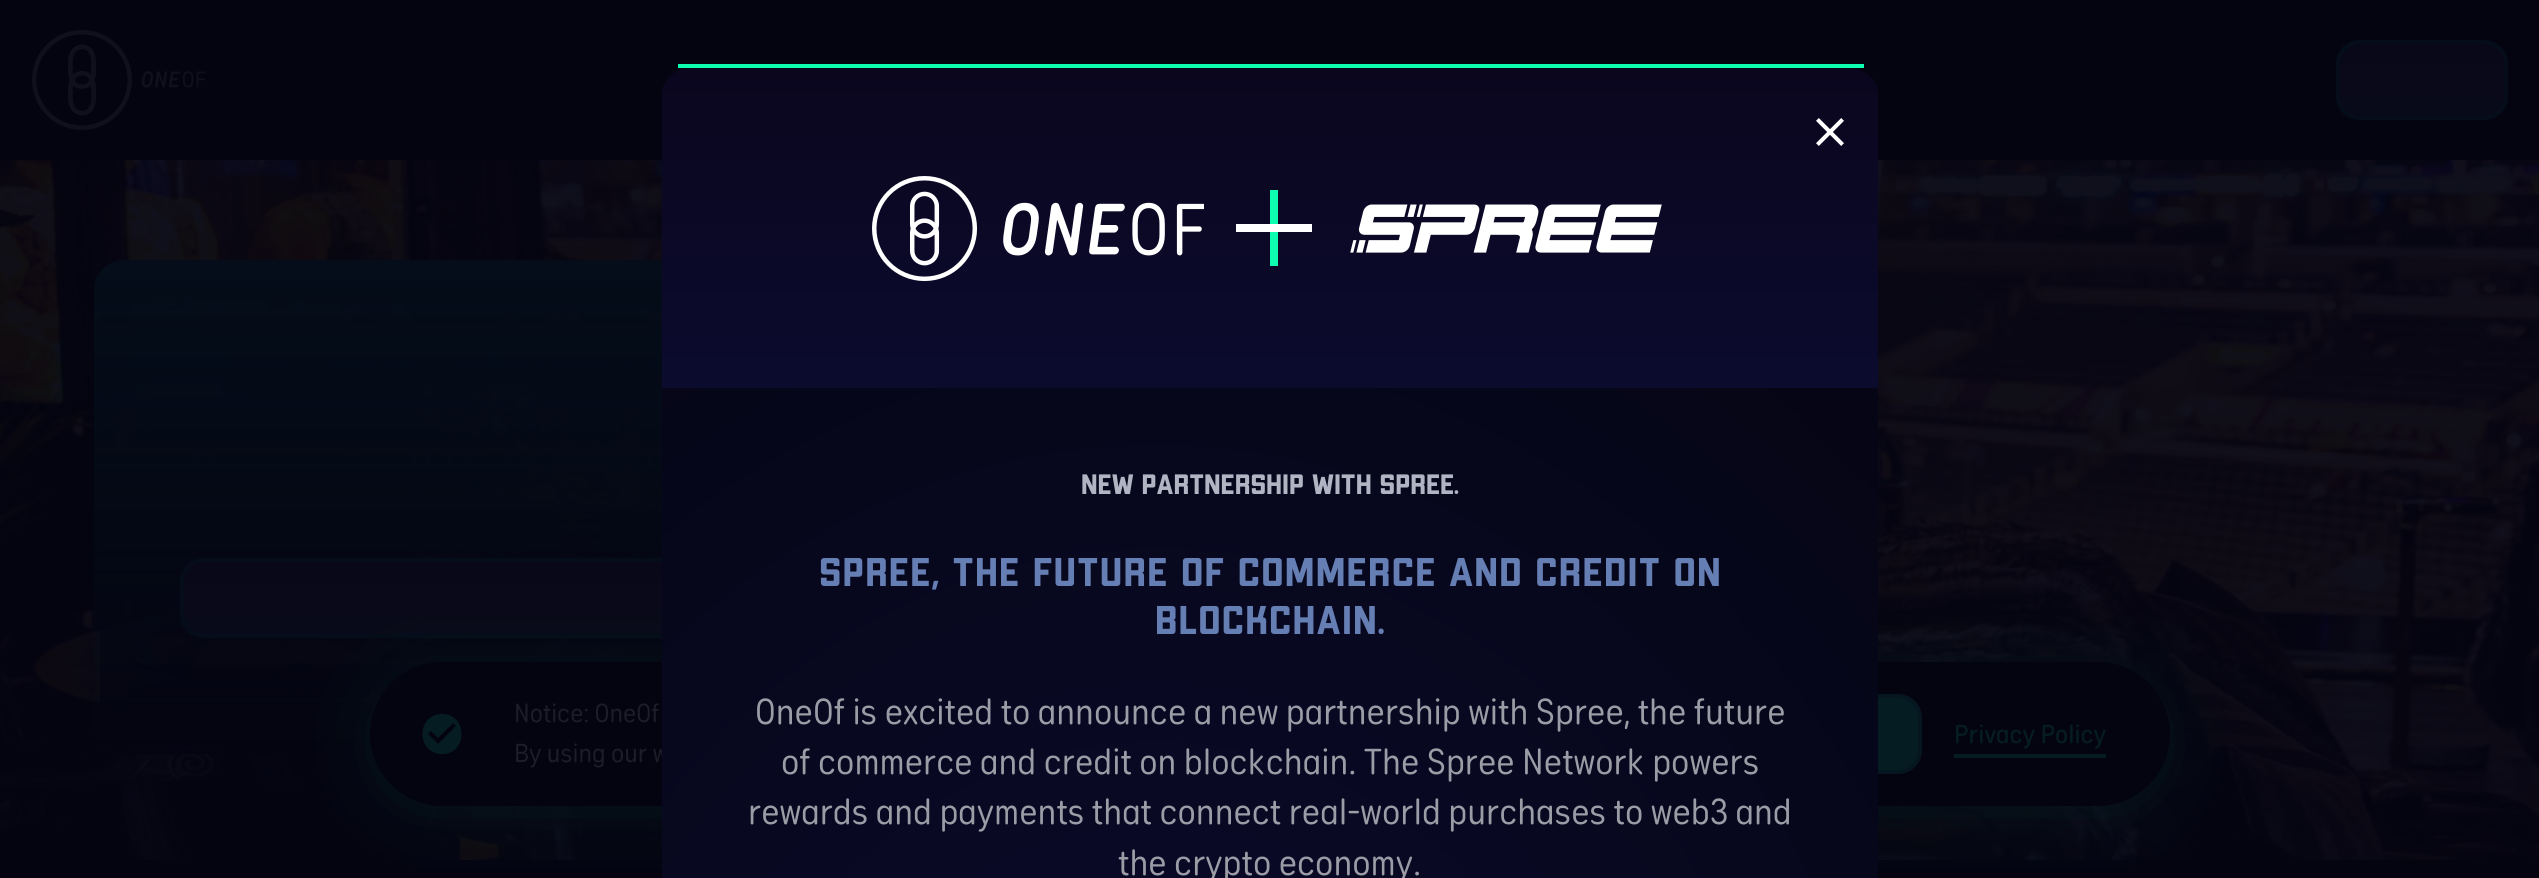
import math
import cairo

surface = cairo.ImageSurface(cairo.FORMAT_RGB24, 2539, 878)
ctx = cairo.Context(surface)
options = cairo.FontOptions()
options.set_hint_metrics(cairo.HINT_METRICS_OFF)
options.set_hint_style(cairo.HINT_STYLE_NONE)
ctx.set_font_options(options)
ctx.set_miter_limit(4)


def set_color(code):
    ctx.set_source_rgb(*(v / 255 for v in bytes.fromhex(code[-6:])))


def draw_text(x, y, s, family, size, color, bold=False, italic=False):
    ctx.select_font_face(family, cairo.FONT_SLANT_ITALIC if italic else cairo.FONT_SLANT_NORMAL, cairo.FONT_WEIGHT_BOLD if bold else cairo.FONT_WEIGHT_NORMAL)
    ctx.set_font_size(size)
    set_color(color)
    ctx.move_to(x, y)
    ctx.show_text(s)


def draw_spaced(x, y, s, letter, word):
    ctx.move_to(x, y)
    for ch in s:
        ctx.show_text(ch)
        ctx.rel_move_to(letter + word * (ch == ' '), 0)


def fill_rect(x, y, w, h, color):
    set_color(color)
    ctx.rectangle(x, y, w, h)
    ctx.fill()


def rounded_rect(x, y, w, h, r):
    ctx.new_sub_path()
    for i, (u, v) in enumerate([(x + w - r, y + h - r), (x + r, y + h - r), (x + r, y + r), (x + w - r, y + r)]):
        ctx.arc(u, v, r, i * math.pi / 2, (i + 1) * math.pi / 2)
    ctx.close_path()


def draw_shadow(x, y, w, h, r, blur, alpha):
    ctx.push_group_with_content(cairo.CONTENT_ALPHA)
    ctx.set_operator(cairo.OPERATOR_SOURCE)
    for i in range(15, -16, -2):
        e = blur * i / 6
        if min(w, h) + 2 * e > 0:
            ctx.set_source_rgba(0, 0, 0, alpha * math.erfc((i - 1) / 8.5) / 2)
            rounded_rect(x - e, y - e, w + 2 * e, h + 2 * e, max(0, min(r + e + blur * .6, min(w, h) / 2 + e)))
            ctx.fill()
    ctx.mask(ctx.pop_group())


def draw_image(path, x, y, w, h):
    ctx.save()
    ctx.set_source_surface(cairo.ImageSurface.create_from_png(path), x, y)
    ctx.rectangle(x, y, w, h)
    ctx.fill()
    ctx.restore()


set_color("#040411")
ctx.paint()
draw_image("assets/img1.png", 32, 30, 174, 100)
ctx.save()
rounded_rect(2336, 40, 172, 80, 24)
ctx.clip()
gradient = cairo.LinearGradient(2422, 116, 2422, 44)
gradient.add_color_stop_rgba(0, 0.035, 0.039, 0.098, 1)
gradient.add_color_stop_rgba(1, 0.035, 0.031, 0.098, 1)
ctx.set_source(gradient)
ctx.rectangle(2336, 44, 172, 72)
ctx.fill()
ctx.restore()
rounded_rect(2338, 42, 168, 76, 22)
set_color("#040d19")
ctx.set_line_width(4)
ctx.stroke()
draw_image("assets/img2.png", 0, 160, 2539, 700)
ctx.set_source_rgba(0.016, 0.016, 0.067, 0.8)
rounded_rect(100, 266, 900, 488, 20)
ctx.fill()
gradient = cairo.LinearGradient(550, 260, 550, 760)
gradient.add_color_stop_rgba(0, 0.016, 0.051, 0.098, 1)
gradient.add_color_stop_rgba(1, 0.016, 0.051, 0.098, 0)
ctx.set_source(gradient)
rounded_rect(94, 260, 912, 500, 30)
ctx.fill()
ctx.save()
rounded_rect(180, 558, 740, 80, 24)
ctx.clip()
gradient = cairo.LinearGradient(550, 634, 550, 562)
gradient.add_color_stop_rgba(0, 0.035, 0.039, 0.098, 1)
gradient.add_color_stop_rgba(1, 0.035, 0.031, 0.098, 1)
ctx.set_source(gradient)
ctx.rectangle(180, 562, 482, 72)
ctx.fill()
ctx.restore()
rounded_rect(182, 560, 736, 76, 22)
set_color("#040d19")
ctx.stroke()
set_color("#051d22")
draw_shadow(370, 670, 1800, 144, 72, 30, 0.6)
set_color("#040410")
rounded_rect(370, 662, 1800, 144, 72)
ctx.fill()
draw_text(514, 762, "By using our w", "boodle", 26, "#1d1d2a")
set_color("#051d22")
rounded_rect(1618, 696, 302, 76, 22)
ctx.fill_preserve()
set_color("#051621")
ctx.stroke()
ctx.save()
rounded_rect(662, 64, 1216, 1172, 30)
ctx.clip()
gradient = cairo.RadialGradient(0, 0, 0, 0, 0, 1)
gradient.set_matrix(cairo.Matrix(1 / 1972, 0, 0, 1 / 2108, -1 * 1158 / 1972, -1 * 1215 / 2108))
gradient.add_color_stop_rgba(0, 0.043, 0.043, 0.176, 1)
gradient.add_color_stop_rgba(1, 0, 0, 0, 1)
ctx.set_source(gradient)
ctx.rectangle(662, 68, 1216, 810)
ctx.fill()
ctx.restore()
fill_rect(678, 64, 1186, 4, "#0dfdb1")
gradient = cairo.LinearGradient(1270, 68, 1270, 388)
gradient.add_color_stop_rgba(0, 0.043, 0.024, 0.118, 1)
gradient.add_color_stop_rgba(1, 0.043, 0.043, 0.18, 1)
ctx.set_source(gradient)
ctx.new_path()
ctx.move_to(692, 68)
ctx.curve_to(675, 68, 662, 80, 662, 94)
ctx.line_to(662, 388)
ctx.line_to(1878, 388)
ctx.line_to(1878, 94)
ctx.curve_to(1878, 80, 1865, 68, 1848, 68)
ctx.close_path()
ctx.fill()
draw_image("assets/img3.png", 872, 176, 332, 106)
fill_rect(1270, 190, 8, 76, "#0ffdb1")
fill_rect(1236, 224, 76, 8, "#ffffff")
draw_image("assets/img4.png", 1350, 204, 312, 49)
draw_image("assets/img5.png", 1816, 118, 28, 28)
draw_text(1081, 494, "NEW PARTNERSHIP WITH SPREE.", "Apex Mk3", 28, "#b1b5c3", bold=True)
ctx.set_font_size(40)
set_color("#657eb3")
draw_spaced(819, 586, "SPREE, THE FUTURE OF COMMERCE AND CREDIT ON", 1.2, 0)
draw_spaced(1155, 634, "BLOCKCHAIN.", 1.2, 0)
draw_text(755, 724, "OneOf is excited to announce a new partnership with Spree, the future", "boodle", 36, "#9c9ca6")
draw_text(781, 774, "of commerce and credit on blockchain. The Spree Network powers", "boodle", 36, "#9c9ca6")
draw_text(748, 824, "rewards and payments that connect real-world purchases to web3 and", "boodle", 36, "#9c9ca6")
draw_text(1118, 875, "the crypto economy.", "boodle", 36, "#9c9ca6")
set_color("#051d22")
ctx.new_path()
ctx.move_to(442, 714)
ctx.curve_to(416, 714, 416, 754, 442, 754)
ctx.curve_to(468, 754, 468, 714, 442, 714)
ctx.close_path()
ctx.move_to(438, 744)
ctx.line_to(428, 734)
ctx.line_to(431, 731)
ctx.line_to(438, 738)
ctx.line_to(453, 723)
ctx.line_to(456, 726)
ctx.close_path()
ctx.fill()
draw_text(514, 722, "Notice: OneOf", "boodle", 26, "#1d1d2a")
draw_text(1954, 743, "Privacy Policy", "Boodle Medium", 26, "#051d22")
fill_rect(1954, 754, 152, 4, "#051d22")
surface.write_to_png("output.png")
